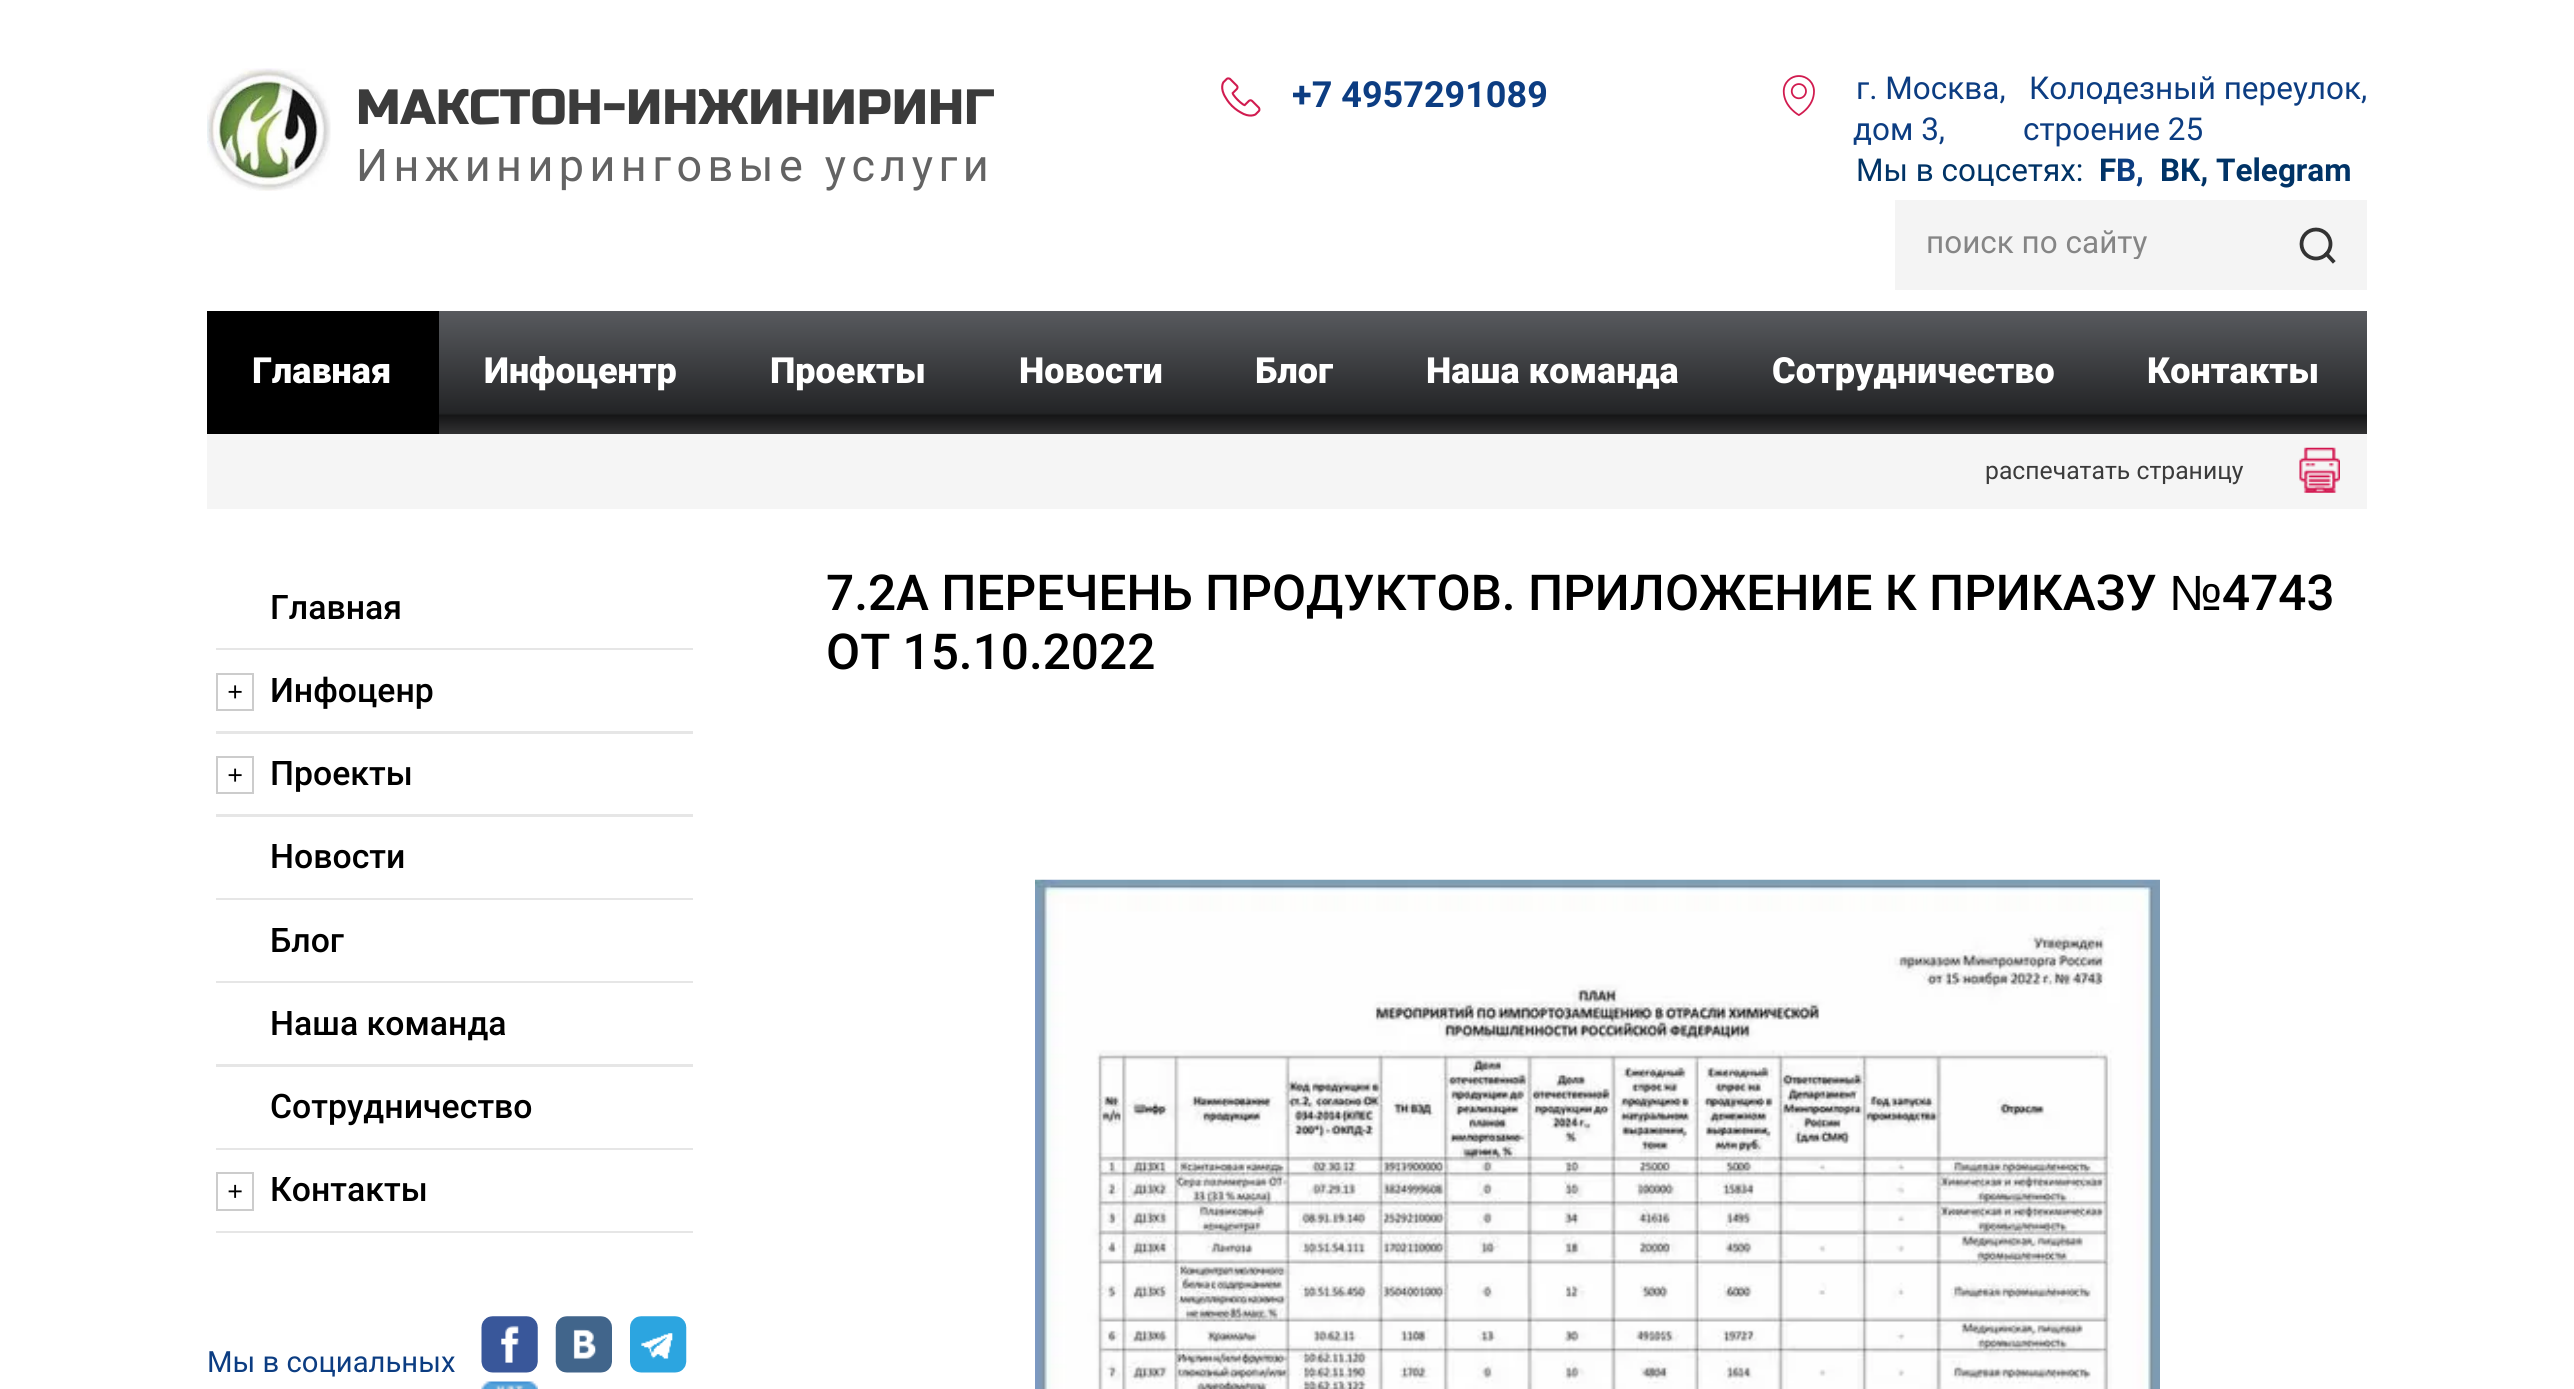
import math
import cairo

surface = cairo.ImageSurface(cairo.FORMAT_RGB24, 2574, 1389)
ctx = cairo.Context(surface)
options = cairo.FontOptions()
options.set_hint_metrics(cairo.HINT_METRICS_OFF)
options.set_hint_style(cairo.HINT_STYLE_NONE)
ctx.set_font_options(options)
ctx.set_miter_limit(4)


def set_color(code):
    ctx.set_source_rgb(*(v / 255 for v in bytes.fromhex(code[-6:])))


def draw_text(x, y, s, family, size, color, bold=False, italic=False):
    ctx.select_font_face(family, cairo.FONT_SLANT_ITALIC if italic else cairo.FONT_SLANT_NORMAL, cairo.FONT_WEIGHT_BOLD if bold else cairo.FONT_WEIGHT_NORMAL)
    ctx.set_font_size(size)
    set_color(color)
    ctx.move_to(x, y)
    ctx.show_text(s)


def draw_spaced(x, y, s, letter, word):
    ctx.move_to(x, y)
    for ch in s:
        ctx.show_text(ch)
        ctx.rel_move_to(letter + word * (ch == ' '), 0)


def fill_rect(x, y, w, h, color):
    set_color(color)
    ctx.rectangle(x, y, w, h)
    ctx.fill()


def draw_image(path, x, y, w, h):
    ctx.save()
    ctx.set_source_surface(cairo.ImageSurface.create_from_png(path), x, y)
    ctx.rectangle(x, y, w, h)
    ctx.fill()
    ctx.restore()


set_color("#ffffff")
ctx.paint()
draw_image("assets/img1.png", 207, 68, 124, 123)
draw_text(356, 124, "МАКСТОН-ИНЖИНИРИНГ", "Russo One", 49.5, "#3b3b3b")
ctx.select_font_face("Roboto")
ctx.set_font_size(45)
set_color("#636363")
draw_spaced(356, 181, "Инжиниринговые услуги", 5.4, 0)
draw_image("assets/img2.png", 1221, 77, 40, 40)
draw_text(1292, 107, "+7 4957291089", "Roboto", 36, "#0c3d82", bold=True)
draw_image("assets/img3.png", 1782, 75, 33, 41)
draw_text(1856, 99, "г. Москва,   Колодезный переулок,", "Roboto", 31.5, "#0c3d82")
draw_text(1853, 140, "дом 3,          строение 25", "Roboto", 31.5, "#0c3d82")
draw_text(1856, 181, "Мы в соцсетях:", "Roboto", 31.5, "#003366")
draw_text(2099, 181, "F", "Roboto", 31.5, "#003366", bold=True)
draw_text(2116, 181, "B,", "Roboto", 31.5, "#0c3d82", bold=True)
draw_text(2160, 181, "ВК, Telegram", "Roboto", 31.5, "#003366", bold=True)
fill_rect(1895, 200, 472, 90, "#f4f4f4")
ctx.save()
ctx.rectangle(1926, 223, 320, 36)
ctx.clip()
draw_text(1926, 253, "поиск по сайту", "Roboto", 31.5, "#858585")
ctx.restore()
ctx.new_path()
ctx.move_to(2326.5, 254)
ctx.line_to(2333, 261)
set_color("#333333")
ctx.set_line_width(3.8)
ctx.set_line_cap(cairo.LINE_CAP_SQUARE)
ctx.stroke()
ctx.arc(2316, 244, 14.5, 0, 2 * math.pi)
ctx.set_line_cap(cairo.LINE_CAP_BUTT)
ctx.stroke()
fill_rect(207, 311, 232, 123, "#000000")
draw_text(252, 383, "Главная", "Roboto Black", 36, "#ffffff")
gradient = cairo.LinearGradient(582, 311, 582, 434)
gradient.add_color_stop_rgba(0, 0.345, 0.353, 0.369, 1)
gradient.add_color_stop_rgba(0.83, 0.137, 0.141, 0.149, 1)
gradient.add_color_stop_rgba(0.85, 0.086, 0.086, 0.09, 1)
gradient.add_color_stop_rgba(1, 0.196, 0.196, 0.2, 1)
ctx.set_source(gradient)
ctx.rectangle(439, 311, 286, 123)
ctx.fill()
draw_text(484, 383, "Инфоцентр", "Roboto Black", 36, "#ffffff")
gradient = cairo.LinearGradient(849, 311, 849, 434)
gradient.add_color_stop_rgba(0, 0.345, 0.353, 0.369, 1)
gradient.add_color_stop_rgba(0.83, 0.137, 0.141, 0.149, 1)
gradient.add_color_stop_rgba(0.85, 0.086, 0.086, 0.09, 1)
gradient.add_color_stop_rgba(1, 0.196, 0.196, 0.2, 1)
ctx.set_source(gradient)
ctx.rectangle(725, 311, 249, 123)
ctx.fill()
draw_text(770, 383, "Проекты", "Roboto Black", 36, "#ffffff")
gradient = cairo.LinearGradient(1092, 311, 1092, 434)
gradient.add_color_stop_rgba(0, 0.345, 0.353, 0.369, 1)
gradient.add_color_stop_rgba(0.83, 0.137, 0.141, 0.149, 1)
gradient.add_color_stop_rgba(0.85, 0.086, 0.086, 0.09, 1)
gradient.add_color_stop_rgba(1, 0.196, 0.196, 0.2, 1)
ctx.set_source(gradient)
ctx.rectangle(974, 311, 237, 123)
ctx.fill()
draw_text(1019, 383, "Новости", "Roboto Black", 36, "#ffffff")
gradient = cairo.LinearGradient(1296, 311, 1296, 434)
gradient.add_color_stop_rgba(0, 0.345, 0.353, 0.369, 1)
gradient.add_color_stop_rgba(0.83, 0.137, 0.141, 0.149, 1)
gradient.add_color_stop_rgba(0.85, 0.086, 0.086, 0.09, 1)
gradient.add_color_stop_rgba(1, 0.196, 0.196, 0.2, 1)
ctx.set_source(gradient)
ctx.rectangle(1211, 311, 171, 123)
ctx.fill()
draw_text(1255, 383, "Блог", "Roboto Black", 36, "#ffffff")
gradient = cairo.LinearGradient(1554, 311, 1554, 434)
gradient.add_color_stop_rgba(0, 0.345, 0.353, 0.369, 1)
gradient.add_color_stop_rgba(0.83, 0.137, 0.141, 0.149, 1)
gradient.add_color_stop_rgba(0.85, 0.086, 0.086, 0.09, 1)
gradient.add_color_stop_rgba(1, 0.196, 0.196, 0.2, 1)
ctx.set_source(gradient)
ctx.rectangle(1382, 311, 344, 123)
ctx.fill()
draw_text(1426, 383, "Наша команда", "Roboto Black", 36, "#ffffff")
gradient = cairo.LinearGradient(1914, 311, 1914, 434)
gradient.add_color_stop_rgba(0, 0.345, 0.353, 0.369, 1)
gradient.add_color_stop_rgba(0.83, 0.137, 0.141, 0.149, 1)
gradient.add_color_stop_rgba(0.85, 0.086, 0.086, 0.09, 1)
gradient.add_color_stop_rgba(1, 0.196, 0.196, 0.2, 1)
ctx.set_source(gradient)
ctx.rectangle(1726, 311, 376, 123)
ctx.fill()
draw_text(1772, 383, "Сотрудничество", "Roboto Black", 36, "#ffffff")
gradient = cairo.LinearGradient(2234, 311, 2234, 434)
gradient.add_color_stop_rgba(0, 0.345, 0.353, 0.369, 1)
gradient.add_color_stop_rgba(0.83, 0.137, 0.141, 0.149, 1)
gradient.add_color_stop_rgba(0.85, 0.086, 0.086, 0.09, 1)
gradient.add_color_stop_rgba(1, 0.196, 0.196, 0.2, 1)
ctx.set_source(gradient)
ctx.rectangle(2102, 311, 265, 123)
ctx.fill()
draw_text(2147, 383, "Контакты", "Roboto Black", 36, "#ffffff")
fill_rect(207, 434, 2160, 75, "#f5f5f5")
draw_image("assets/img4.png", 2299, 447, 41, 46)
draw_text(1985, 479, "распечатать страницу", "Roboto", 24.75, "#3b3b3b")
fill_rect(216, 648, 477, 2, "#e6e6e6")
draw_text(270, 619, "Главная", "Roboto Medium", 33.75, "#000000")
ctx.rectangle(217, 674, 36, 36)
set_color("#cccccc")
ctx.set_line_width(2)
ctx.stroke()
draw_image("assets/img5.png", 228, 685, 14, 14)
fill_rect(216, 731, 477, 3, "#e6e6e6")
draw_text(270, 702, "Инфоценр", "Roboto Medium", 33.75, "#000000")
ctx.rectangle(217, 757, 36, 36)
set_color("#cccccc")
ctx.stroke()
draw_image("assets/img6.png", 228, 768, 14, 14)
fill_rect(216, 814, 477, 3, "#e6e6e6")
draw_text(270, 785, "Проекты", "Roboto Medium", 33.75, "#000000")
fill_rect(216, 898, 477, 2, "#e6e6e6")
draw_text(270, 868, "Новости", "Roboto Medium", 33.75, "#000000")
fill_rect(216, 981, 477, 2, "#e6e6e6")
draw_text(270, 952, "Блог", "Roboto Medium", 33.75, "#000000")
fill_rect(216, 1064, 477, 3, "#e6e6e6")
draw_text(270, 1035, "Наша команда", "Roboto Medium", 33.75, "#000000")
fill_rect(216, 1148, 477, 2, "#e6e6e6")
draw_text(270, 1118, "Сотрудничество", "Roboto Medium", 33.75, "#000000")
ctx.rectangle(217, 1173, 36, 37)
set_color("#cccccc")
ctx.stroke()
draw_image("assets/img7.png", 228, 1184, 14, 14)
fill_rect(216, 1231, 477, 2, "#e6e6e6")
draw_text(270, 1201, "Контакты", "Roboto Medium", 33.75, "#000000")
draw_text(207, 1372, "Мы в социальных", "Roboto", 29.25, "#0c3d82")
draw_image("assets/img8.png", 481, 1316, 57, 57)
draw_image("assets/img9.png", 555, 1316, 57, 57)
draw_image("assets/img10.png", 630, 1316, 57, 57)
draw_image("assets/img11.png", 481, 1381, 57, 8)
draw_text(826, 610, "7.2А ПЕРЕЧЕНЬ ПРОДУКТОВ. ПРИЛОЖЕНИЕ К ПРИКАЗУ", "Roboto Medium", 49.5, "#000000")
draw_text(2169, 610, "№", "Liberation Sans", 49.5, "#000000")
draw_text(2222, 610, "4743", "Roboto Medium", 49.5, "#000000")
draw_text(826, 669, "ОТ 15.10.2022", "Roboto Medium", 49.5, "#000000")
draw_image("assets/img12.png", 1035, 879, 1125, 510)
surface.write_to_png("output.png")
